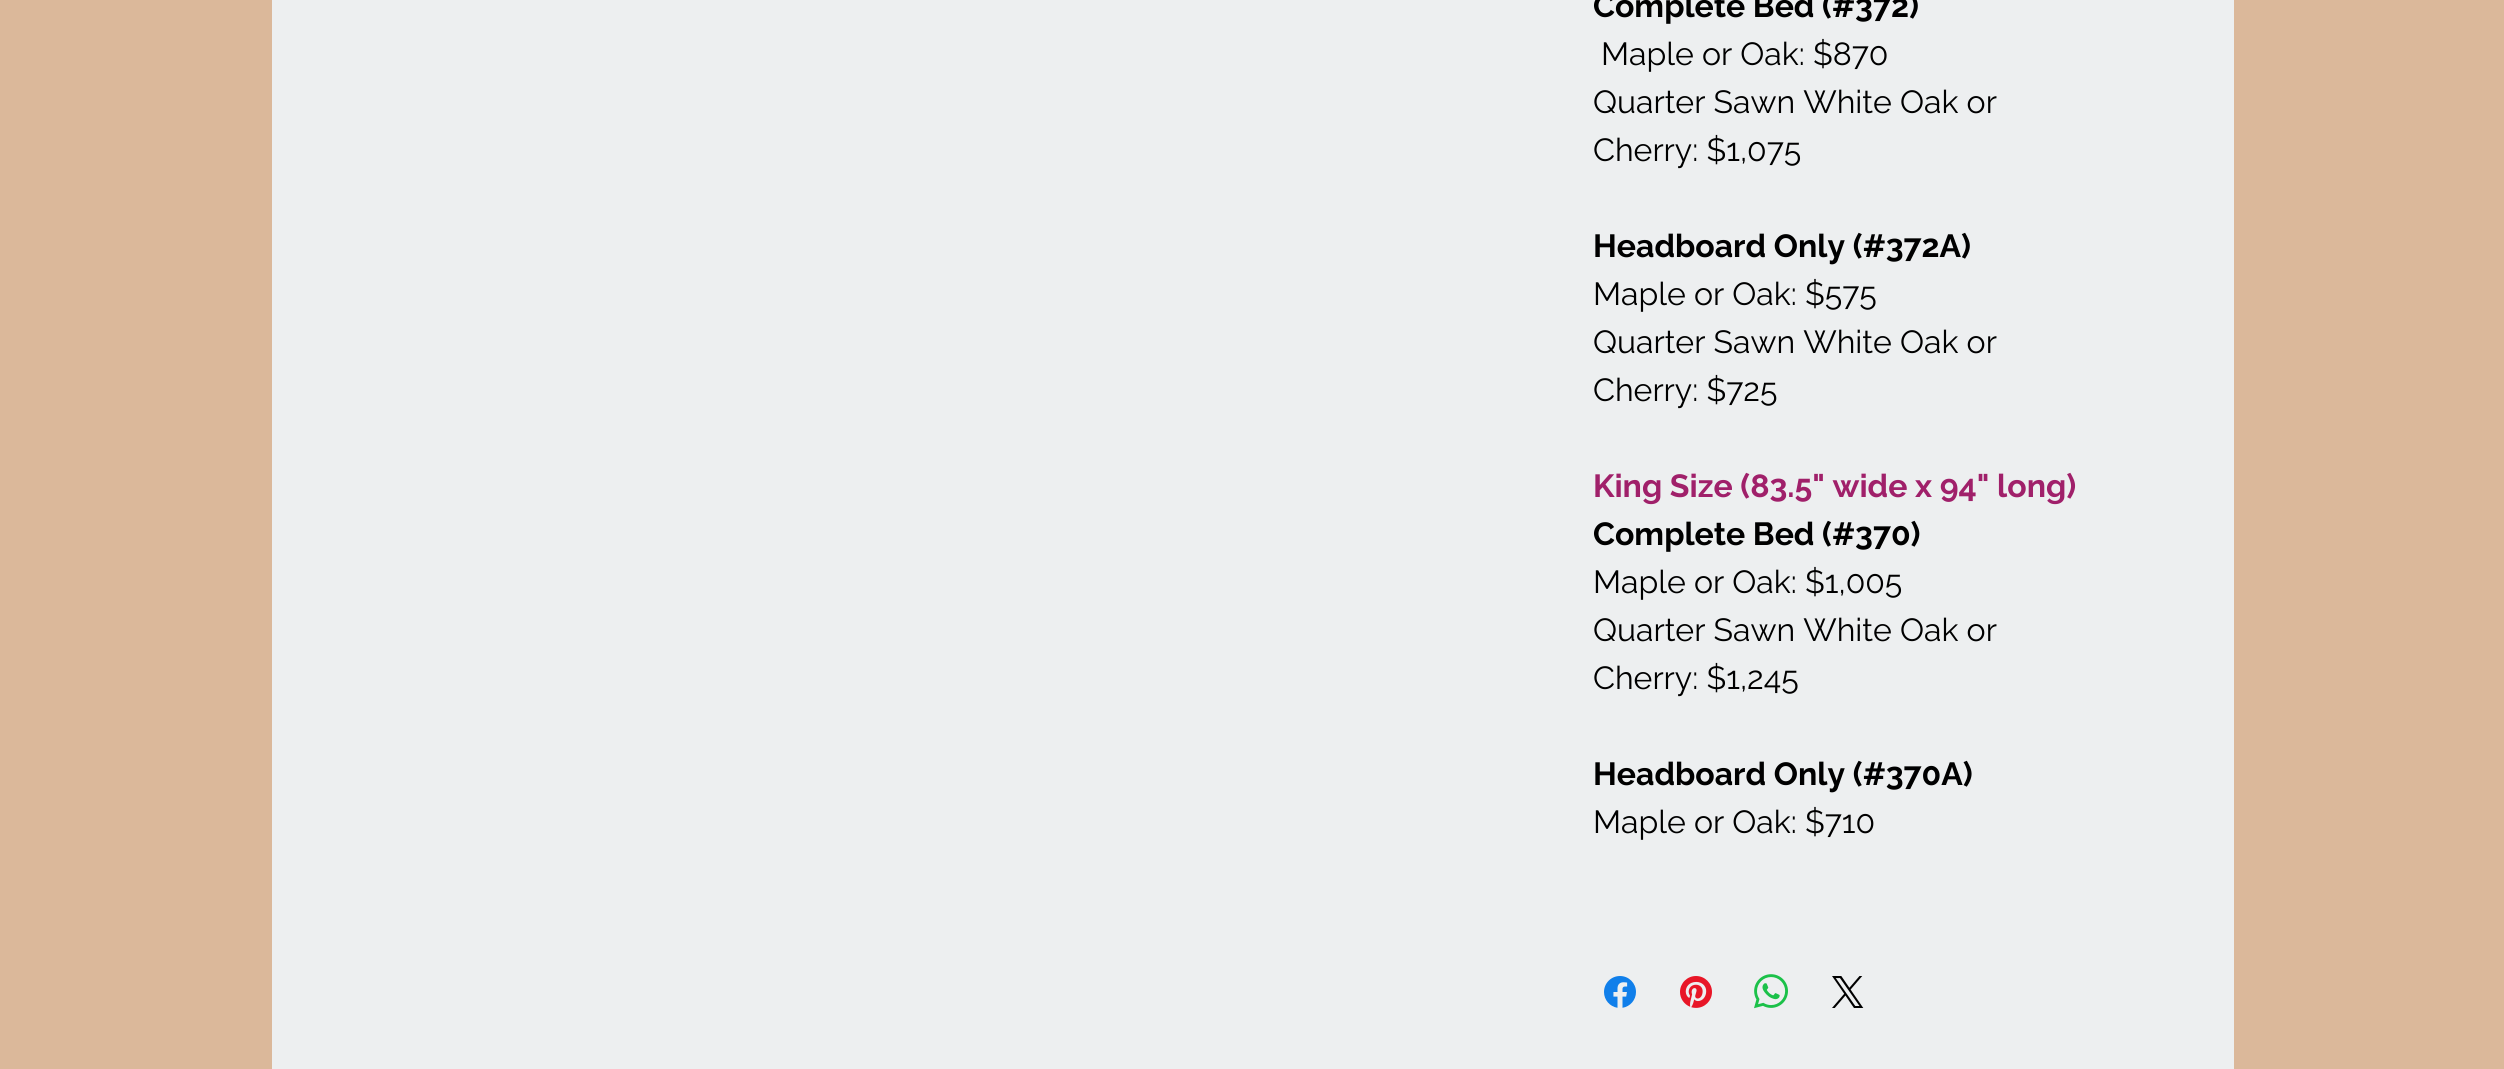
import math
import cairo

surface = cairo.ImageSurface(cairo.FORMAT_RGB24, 2504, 1069)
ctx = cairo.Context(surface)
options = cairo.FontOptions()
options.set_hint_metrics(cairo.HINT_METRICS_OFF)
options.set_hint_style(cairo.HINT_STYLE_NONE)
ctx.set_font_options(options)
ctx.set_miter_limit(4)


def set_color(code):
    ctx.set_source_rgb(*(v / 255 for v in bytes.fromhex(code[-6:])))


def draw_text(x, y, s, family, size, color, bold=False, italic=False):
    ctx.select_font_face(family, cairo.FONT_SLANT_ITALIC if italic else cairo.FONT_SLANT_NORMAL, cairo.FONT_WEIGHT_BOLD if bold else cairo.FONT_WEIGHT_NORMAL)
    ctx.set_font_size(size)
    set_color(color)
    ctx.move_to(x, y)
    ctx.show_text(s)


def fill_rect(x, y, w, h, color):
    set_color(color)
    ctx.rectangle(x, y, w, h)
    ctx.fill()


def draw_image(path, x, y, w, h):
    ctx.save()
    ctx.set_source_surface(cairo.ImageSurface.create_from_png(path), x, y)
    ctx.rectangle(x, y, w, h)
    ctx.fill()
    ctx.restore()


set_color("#dbb89a")
ctx.paint()
fill_rect(272, 0, 1962, 1069, "#edeff0")
draw_text(1593, 17, "Complete Bed (#372)", "Raleway", 32, "#000000", bold=True)
draw_text(1601, 65, "Maple or Oak: $870", "Raleway", 32, "#000000")
draw_text(1593, 113, "Quarter Sawn White Oak or", "Raleway", 32, "#000000")
draw_text(1593, 161, "Cherry: $1,075", "Raleway", 32, "#000000")
draw_text(1593, 257, "Headboard Only (#372A)", "Raleway", 32, "#000000", bold=True)
draw_text(1593, 305, "Maple or Oak: $575", "Raleway", 32, "#000000")
draw_text(1593, 353, "Quarter Sawn White Oak or", "Raleway", 32, "#000000")
draw_text(1593, 401, "Cherry: $725", "Raleway", 32, "#000000")
draw_text(1593, 497, "King Size (83.5\" wide x 94\" long)", "Raleway", 32, "#a0206a", bold=True)
draw_text(1593, 545, "Complete Bed (#370)", "Raleway", 32, "#000000", bold=True)
draw_text(1593, 593, "Maple or Oak: $1,005", "Raleway", 32, "#000000")
draw_text(1593, 641, "Quarter Sawn White Oak or", "Raleway", 32, "#000000")
draw_text(1593, 689, "Cherry: $1,245", "Raleway", 32, "#000000")
draw_text(1593, 785, "Headboard Only (#370A)", "Raleway", 32, "#000000", bold=True)
draw_text(1593, 833, "Maple or Oak: $710", "Raleway", 32, "#000000")
draw_image("assets/img1.png", 1604, 976, 32, 32)
draw_image("assets/img2.png", 1680, 976, 32, 32)
draw_image("assets/img3.png", 1754, 974, 34, 35)
draw_image("assets/img4.png", 1832, 976, 32, 32)
surface.write_to_png("output.png")
